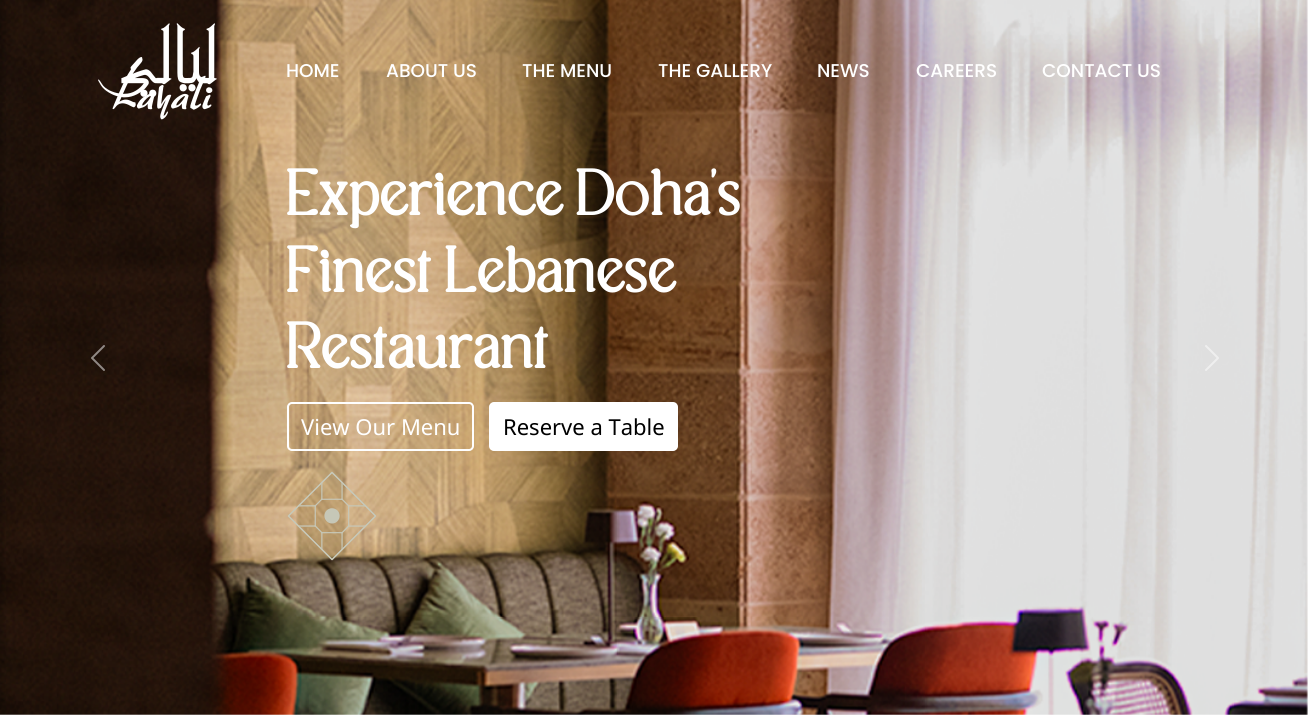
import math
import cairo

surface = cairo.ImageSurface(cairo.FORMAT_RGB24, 1310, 715)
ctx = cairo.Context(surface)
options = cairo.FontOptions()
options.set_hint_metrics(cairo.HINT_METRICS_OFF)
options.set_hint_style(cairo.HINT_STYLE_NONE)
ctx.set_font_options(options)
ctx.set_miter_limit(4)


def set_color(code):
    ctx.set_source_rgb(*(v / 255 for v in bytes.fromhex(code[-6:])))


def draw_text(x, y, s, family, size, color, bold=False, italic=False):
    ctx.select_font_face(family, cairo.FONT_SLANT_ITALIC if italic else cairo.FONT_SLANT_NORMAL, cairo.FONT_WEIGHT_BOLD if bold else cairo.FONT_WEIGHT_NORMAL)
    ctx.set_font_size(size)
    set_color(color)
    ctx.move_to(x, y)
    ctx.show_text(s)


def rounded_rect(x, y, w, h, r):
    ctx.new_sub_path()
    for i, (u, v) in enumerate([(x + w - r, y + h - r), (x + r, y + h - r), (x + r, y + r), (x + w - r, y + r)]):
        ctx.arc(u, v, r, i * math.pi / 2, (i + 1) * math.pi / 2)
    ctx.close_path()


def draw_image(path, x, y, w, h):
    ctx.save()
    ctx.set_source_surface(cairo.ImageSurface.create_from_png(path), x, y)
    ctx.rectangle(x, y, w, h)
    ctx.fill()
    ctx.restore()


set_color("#ffffff")
ctx.paint()
draw_image("assets/img2.png", 0, 0, 1308, 715)
draw_image("assets/img1.png", 98, 23, 119, 97)
draw_text(286, 77, "HOME", "Poppins Medium", 18.5, "#ffffff")
draw_text(386, 77, "ABOUT US", "Poppins Medium", 18.5, "#ffffff")
draw_text(522, 77, "THE MENU", "Poppins Medium", 18.5, "#ffffff")
draw_text(658, 77, "THE GALLERY", "Poppins Medium", 18.5, "#ffffff")
draw_text(817, 77, "NEWS", "Poppins Medium", 18.5, "#ffffff")
draw_text(916, 77, "CAREERS", "Poppins Medium", 18.5, "#ffffff")
draw_text(1042, 77, "CONTACT US", "Poppins Medium", 18.5, "#ffffff")
draw_text(287, 215, "Experience Doha's", "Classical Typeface", 64, "#ffffff", bold=True)
draw_text(287, 292, "Finest Lebanese", "Classical Typeface", 64, "#ffffff", bold=True)
draw_text(287, 368, "Restaurant", "Classical Typeface", 64, "#ffffff", bold=True)
rounded_rect(288, 403, 185, 47, 4)
ctx.stroke()
draw_text(301, 435, "View Our Menu", "Noto Sans", 22, "#ffffff")
rounded_rect(490, 403, 187, 47, 4)
ctx.fill_preserve()
ctx.stroke()
draw_text(503, 435, "Reserve a Table", "Noto Sans", 22, "#000000")
draw_image("assets/img3.png", 287, 471, 90, 90)
draw_image("assets/img4.png", 91, 345, 14, 26)
draw_image("assets/img5.png", 1205, 345, 14, 26)
surface.write_to_png("output.png")
